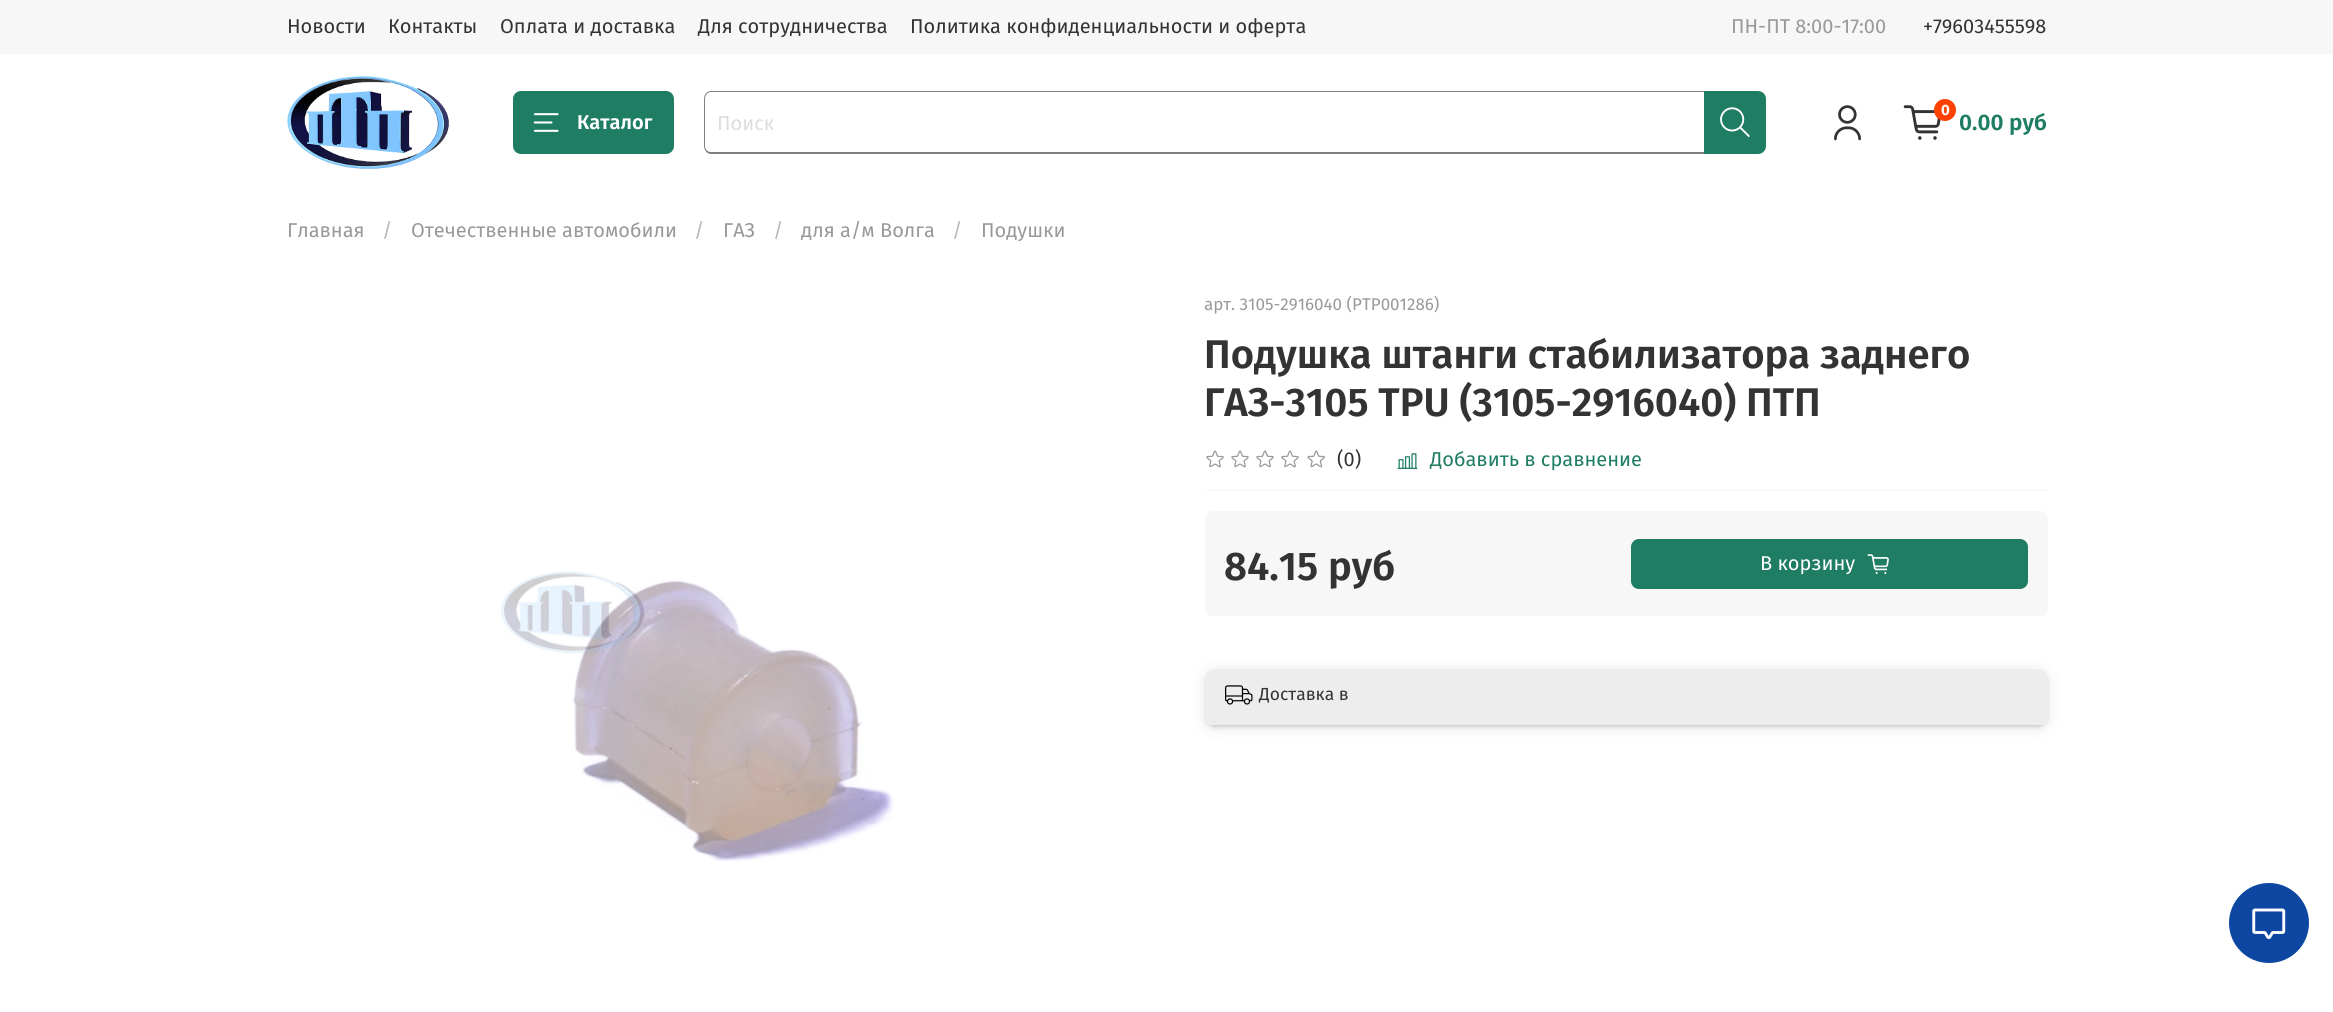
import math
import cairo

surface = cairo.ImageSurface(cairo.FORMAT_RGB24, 2333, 1012)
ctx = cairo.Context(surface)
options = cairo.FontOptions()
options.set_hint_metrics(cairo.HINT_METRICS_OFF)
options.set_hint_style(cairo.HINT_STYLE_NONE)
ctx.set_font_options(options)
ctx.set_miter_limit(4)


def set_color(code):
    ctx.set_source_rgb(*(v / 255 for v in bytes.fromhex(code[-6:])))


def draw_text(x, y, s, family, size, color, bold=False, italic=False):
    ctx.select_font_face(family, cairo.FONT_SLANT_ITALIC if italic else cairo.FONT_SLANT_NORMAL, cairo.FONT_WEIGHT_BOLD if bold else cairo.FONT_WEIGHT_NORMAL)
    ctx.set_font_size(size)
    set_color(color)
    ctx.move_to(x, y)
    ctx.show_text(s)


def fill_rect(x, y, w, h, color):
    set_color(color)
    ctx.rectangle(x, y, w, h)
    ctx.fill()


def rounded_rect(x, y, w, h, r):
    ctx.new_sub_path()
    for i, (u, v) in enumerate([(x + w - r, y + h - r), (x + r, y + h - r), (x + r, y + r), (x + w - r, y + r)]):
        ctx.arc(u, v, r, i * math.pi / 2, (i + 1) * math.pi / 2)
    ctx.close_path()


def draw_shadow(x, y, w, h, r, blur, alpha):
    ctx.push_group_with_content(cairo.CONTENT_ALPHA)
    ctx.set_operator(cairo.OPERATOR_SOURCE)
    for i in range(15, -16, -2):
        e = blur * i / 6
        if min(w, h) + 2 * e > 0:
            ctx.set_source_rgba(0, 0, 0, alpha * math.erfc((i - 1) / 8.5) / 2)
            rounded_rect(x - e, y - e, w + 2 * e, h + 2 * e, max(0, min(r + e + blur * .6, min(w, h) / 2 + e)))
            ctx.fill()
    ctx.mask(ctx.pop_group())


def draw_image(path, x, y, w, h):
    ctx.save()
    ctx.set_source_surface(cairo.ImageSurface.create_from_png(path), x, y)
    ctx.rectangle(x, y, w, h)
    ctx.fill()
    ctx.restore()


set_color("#ffffff")
ctx.paint()
fill_rect(0, 0, 2333, 54, "#f7f7f7")
draw_text(287, 33, "Новости", "Fira Sans", 20, "#333333")
draw_text(388, 33, "Контакты", "Fira Sans", 20, "#333333")
draw_text(500, 33, "Оплата и доставка", "Fira Sans", 20, "#333333")
draw_text(698, 33, "Для сотрудничества", "Fira Sans", 20, "#333333")
draw_text(910, 33, "Политика конфиденциальности и оферта", "Fira Sans", 20, "#333333")
draw_text(1731, 33, "ПН-ПТ 8:00-17:00", "Fira Sans", 20, "#999999")
draw_text(1923, 33, "+79603455598", "Fira Sans", 20, "#333333")
draw_image("assets/img1.png", 287, 76, 162, 93)
set_color("#1f7d63")
rounded_rect(513, 91, 161, 63, 8)
ctx.fill()
draw_image("assets/img2.png", 533, 113, 26, 19)
draw_text(577, 129, "Каталог", "Fira Sans SemiBold", 20, "#ffffff")
set_color("#808080")
ctx.set_fill_rule(cairo.FILL_RULE_EVEN_ODD)
ctx.new_path()
ctx.move_to(711, 91)
ctx.line_to(1704, 91)
ctx.line_to(1704, 154)
ctx.line_to(711, 154)
ctx.curve_to(707, 154, 704, 150, 704, 146)
ctx.line_to(704, 99)
ctx.curve_to(704, 95, 707, 91, 711, 91)
ctx.close_path()
ctx.move_to(711, 92)
ctx.line_to(1704, 92)
ctx.line_to(1704, 152)
ctx.line_to(711, 152)
ctx.curve_to(708, 152, 705, 150, 705, 146)
ctx.line_to(705, 99)
ctx.curve_to(705, 95, 708, 92, 711, 92)
ctx.close_path()
ctx.fill()
draw_text(717, 130, "Поиск", "Fira Sans", 20, "#dddddd")
set_color("#1f7d63")
ctx.new_path()
ctx.move_to(1704, 91)
ctx.line_to(1758, 91)
ctx.curve_to(1762.5, 91, 1766, 94.5, 1766, 99)
ctx.line_to(1766, 146)
ctx.curve_to(1766, 150.5, 1762.5, 154, 1758, 154)
ctx.line_to(1704, 154)
ctx.close_path()
ctx.fill()
draw_image("assets/img3.png", 1720, 107, 30, 30)
draw_image("assets/img4.png", 1834, 105, 27, 36)
draw_image("assets/img5.png", 1903, 105, 38, 35)
set_color("#ff4100")
ctx.arc(1945, 110, 11, 0, 2 * math.pi)
ctx.fill()
draw_text(1941, 115, "0", "Fira Sans", 15, "#ffffff", bold=True)
draw_text(1959, 130, "0.00 руб", "Fira Sans SemiBold", 22.5, "#1f7d63")
draw_text(287, 237, "Главная", "Fira Sans", 20, "#999999")
draw_text(382, 237, "/", "Fira Sans", 20, "#b8b8b8")
draw_text(411, 237, "Отечественные автомобили", "Fira Sans", 20, "#999999")
draw_text(694, 237, "/", "Fira Sans", 20, "#b8b8b8")
draw_text(723, 237, "ГАЗ", "Fira Sans", 20, "#999999")
draw_text(773, 237, "/", "Fira Sans", 20, "#b8b8b8")
draw_text(801, 237, "для а/м Волга", "Fira Sans", 20, "#999999")
draw_text(952, 237, "/", "Fira Sans", 20, "#b8b8b8")
draw_text(981, 237, "Подушки", "Fira Sans", 20, "#999999")
draw_text(1204, 310, "арт. 3105-2916040 (PTP001286)", "Fira Sans", 17, "#999999")
draw_text(1204, 368, "Подушка штанги стабилизатора заднего", "Fira Sans SemiBold", 40, "#333333")
draw_text(1204, 416, "ГАЗ-3105 TPU (3105-2916040) ПТП", "Fira Sans SemiBold", 40, "#333333")
fill_rect(1205, 490, 843, 1, "#f7f7f7")
draw_image("assets/img6.png", 1206, 450, 18, 18)
draw_image("assets/img6.png", 1231, 450, 18, 18)
draw_image("assets/img6.png", 1256, 450, 18, 18)
draw_image("assets/img6.png", 1281, 450, 18, 18)
draw_image("assets/img7.png", 1307, 450, 18, 18)
draw_text(1337, 466, "(0)", "Fira Sans", 20, "#333333")
draw_image("assets/img8.png", 1397, 453, 21, 16)
draw_text(1430, 466, "Добавить в сравнение", "Fira Sans", 20, "#1f7d63")
draw_image("assets/img9.png", 500, 571, 394, 291)
set_color("#f7f7f7")
rounded_rect(1205, 511, 843, 105, 8)
ctx.fill()
draw_text(1224, 580, "84.15 руб", "Fira Sans SemiBold", 40, "#333333")
set_color("#1f7d63")
rounded_rect(1631, 539, 397, 50, 8)
ctx.fill()
draw_text(1760, 570, "В корзину", "Fira Sans", 20, "#ffffff")
draw_image("assets/img10.png", 1867, 554, 22, 20)
set_color("#000000")
draw_shadow(1205, 671, 843, 57, 10, 10, 0.05)
draw_shadow(1205, 671, 843, 57, 10, 5, 0.05)
draw_shadow(1205, 671, 843, 57, 10, 2.5, 0.05)
draw_shadow(1205, 671, 843, 57, 10, 1, 0.05)
draw_shadow(1205, 670, 843, 56, 10, 0.5, 0.05)
set_color("#ededed")
ctx.new_path()
ctx.move_to(1215, 669)
ctx.line_to(2038, 669)
ctx.curve_to(2043.5, 669, 2048, 673.5, 2048, 679)
ctx.line_to(2048, 725)
ctx.line_to(1205, 725)
ctx.line_to(1205, 679)
ctx.curve_to(1205, 673.5, 1209.5, 669, 1215, 669)
ctx.close_path()
ctx.fill()
draw_image("assets/img11.png", 1225, 685, 28, 20)
draw_text(1259, 700, "Доставка в", "Fira Sans", 17.5, "#333333")
set_color("#0d47a1")
ctx.new_path()
ctx.arc(2269, 923, 40, 0, 2 * math.pi)
ctx.fill()
draw_image("assets/img12.png", 2252, 908, 34, 31)
surface.write_to_png("output.png")
